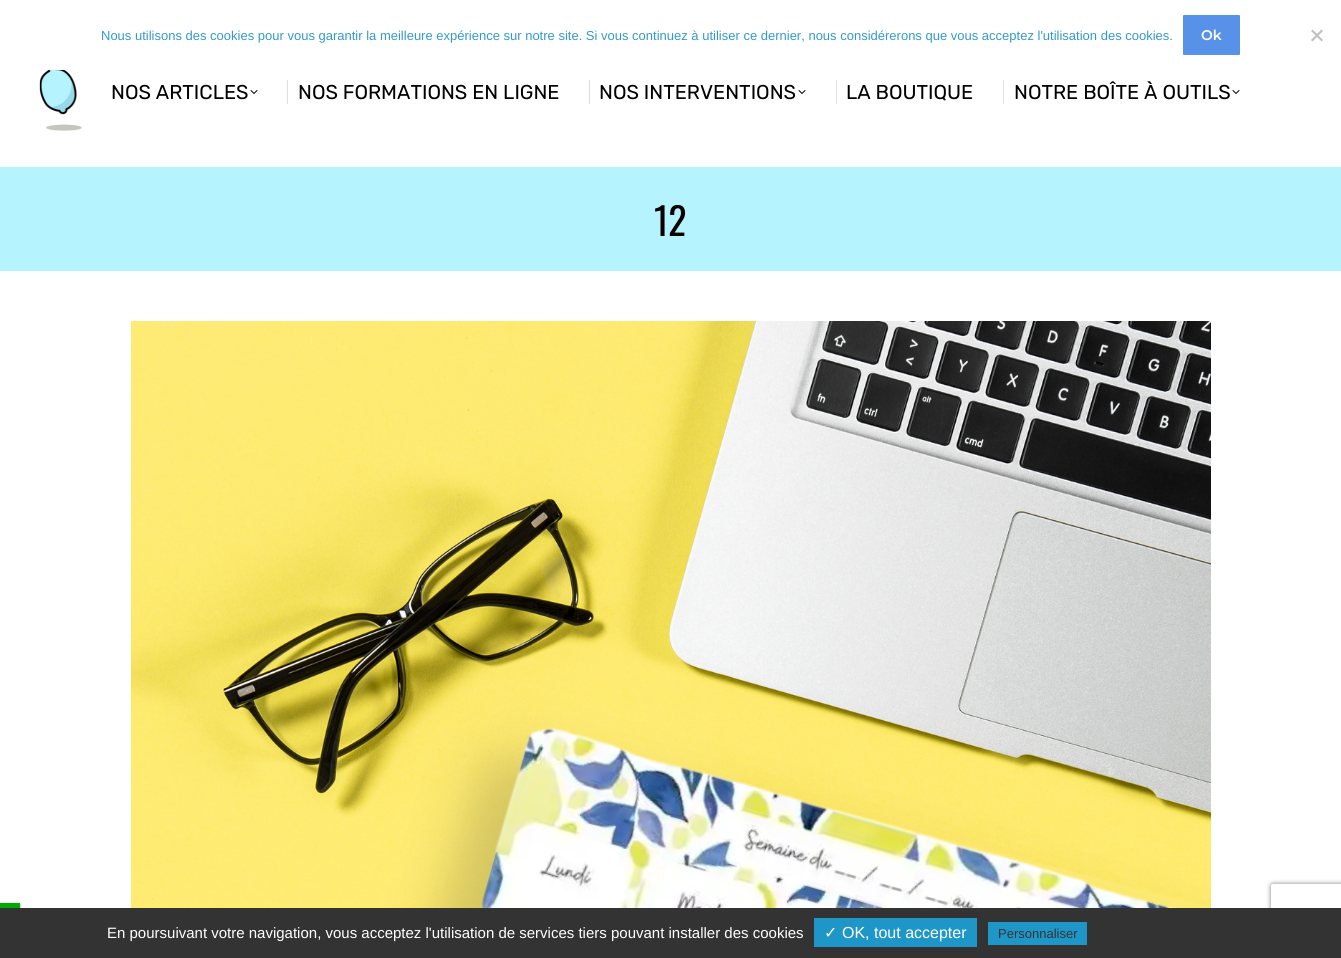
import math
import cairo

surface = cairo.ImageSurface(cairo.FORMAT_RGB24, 1341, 958)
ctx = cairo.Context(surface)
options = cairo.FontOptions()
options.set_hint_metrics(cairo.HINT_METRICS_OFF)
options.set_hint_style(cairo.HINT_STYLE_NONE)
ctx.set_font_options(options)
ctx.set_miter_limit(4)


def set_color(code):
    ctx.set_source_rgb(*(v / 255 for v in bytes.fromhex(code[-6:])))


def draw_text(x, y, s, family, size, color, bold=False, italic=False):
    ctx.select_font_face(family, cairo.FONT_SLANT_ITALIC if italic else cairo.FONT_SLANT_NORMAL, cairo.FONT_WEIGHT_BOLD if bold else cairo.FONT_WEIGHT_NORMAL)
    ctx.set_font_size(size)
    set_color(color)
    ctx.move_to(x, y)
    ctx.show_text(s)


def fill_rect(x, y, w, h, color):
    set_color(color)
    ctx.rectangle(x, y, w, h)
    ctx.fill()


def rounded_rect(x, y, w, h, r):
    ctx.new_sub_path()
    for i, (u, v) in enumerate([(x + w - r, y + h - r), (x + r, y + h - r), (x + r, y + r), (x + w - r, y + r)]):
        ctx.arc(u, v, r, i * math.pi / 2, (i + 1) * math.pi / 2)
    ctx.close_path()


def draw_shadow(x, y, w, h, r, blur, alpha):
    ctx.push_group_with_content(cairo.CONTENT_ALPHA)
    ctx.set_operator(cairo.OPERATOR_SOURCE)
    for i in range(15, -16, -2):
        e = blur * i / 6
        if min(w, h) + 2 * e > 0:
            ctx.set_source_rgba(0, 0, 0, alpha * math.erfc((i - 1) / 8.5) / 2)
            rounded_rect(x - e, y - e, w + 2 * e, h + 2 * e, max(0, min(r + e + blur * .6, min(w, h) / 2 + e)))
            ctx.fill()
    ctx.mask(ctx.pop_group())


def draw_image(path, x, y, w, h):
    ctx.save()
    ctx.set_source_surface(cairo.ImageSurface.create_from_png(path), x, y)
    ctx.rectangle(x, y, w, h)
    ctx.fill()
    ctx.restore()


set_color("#ffffff")
ctx.paint()
draw_text(101, 40, "Nous utilisons des cookies pour vous garantir la meilleure expérience sur notre site. Si vous continuez à utiliser ce dernier, nous considérerons que vous acceptez l'utilisation des cookies.", "Liberation Sans", 13, "#3399cc")
set_color("#5891e8")
rounded_rect(1183, 15, 57, 40, 1)
ctx.fill()
draw_text(1201, 40, "Ok", "Montserrat SemiBold", 14, "#ffffff")
set_color("#c0c0c0")
ctx.new_path()
ctx.move_to(1321.5, 29.5)
ctx.line_to(1323, 31)
ctx.line_to(1312.5, 41.5)
ctx.line_to(1311, 40)
ctx.close_path()
ctx.fill()
ctx.new_path()
ctx.move_to(1311, 31)
ctx.line_to(1312.5, 29.5)
ctx.line_to(1323, 40)
ctx.line_to(1321.5, 41.5)
ctx.close_path()
ctx.fill()
draw_image("assets/img1.png", 39, 70, 43, 61)
draw_text(111, 99, "NOS ARTICLES", "Rubik", 20, "#000000")
draw_image("assets/img2.png", 250, 90, 8, 4)
fill_rect(287, 80, 1, 24, "#dedede")
draw_text(298, 99, "NOS FORMATIONS EN LIGNE", "Rubik", 20, "#000000")
fill_rect(589, 80, 1, 24, "#dedede")
draw_text(599, 99, "NOS INTERVENTIONS", "Rubik", 20, "#000000")
draw_image("assets/img2.png", 798, 90, 8, 4)
fill_rect(836, 80, 1, 24, "#dedede")
draw_text(846, 99, "LA BOUTIQUE", "Rubik", 20, "#000000")
fill_rect(1003, 80, 1, 24, "#dedede")
draw_text(1014, 99, "NOTRE BOÎTE À OUTILS", "Rubik", 20, "#000000")
draw_image("assets/img2.png", 1232, 90, 8, 4)
fill_rect(0, 167, 1341, 104, "#b5f4ff")
draw_text(654, 236, "12", "Oswald", 38, "#0a0101")
draw_image("assets/img3.png", 131, 321, 1080, 587)
set_color("#555555")
draw_shadow(0, 904, 20, 5, 0, 1, 1)
set_color("#ffffff")
draw_shadow(0, 903, 20, 5, 0, 1, 1)
fill_rect(0, 903, 20, 5, "#00aa00")
ctx.save()
ctx.set_fill_rule(cairo.FILL_RULE_EVEN_ODD)
ctx.new_path()
ctx.move_to(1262, 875)
ctx.line_to(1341, 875)
ctx.line_to(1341, 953)
ctx.line_to(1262, 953)
ctx.close_path()
ctx.move_to(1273, 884)
ctx.line_to(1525, 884)
ctx.curve_to(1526, 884, 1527, 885, 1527, 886)
ctx.line_to(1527, 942)
ctx.curve_to(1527, 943, 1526, 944, 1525, 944)
ctx.line_to(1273, 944)
ctx.curve_to(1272, 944, 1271, 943, 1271, 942)
ctx.line_to(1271, 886)
ctx.curve_to(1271, 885, 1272, 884, 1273, 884)
ctx.close_path()
ctx.clip()
set_color("#808080")
draw_shadow(1271, 884, 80, 60, 2, 2.5, 1)
ctx.restore()
fill_rect(0, 908, 1341, 50, "#333333")
draw_text(107, 938, "En poursuivant votre navigation, vous acceptez l'utilisation de services tiers pouvant installer des cookies", "Liberation Sans", 15, "#ffffff")
fill_rect(814, 918, 163, 29, "#1e97c8")
draw_text(824, 938, "✓", "DejaVu Sans", 16, "#ffffff")
draw_text(842, 938, "OK, tout accepter", "Liberation Sans", 16, "#ffffff")
fill_rect(988, 922, 99, 23, "#1e97c8")
draw_text(998, 938, "Personnaliser", "Liberation Sans", 13, "#333333")
surface.write_to_png("output.png")
